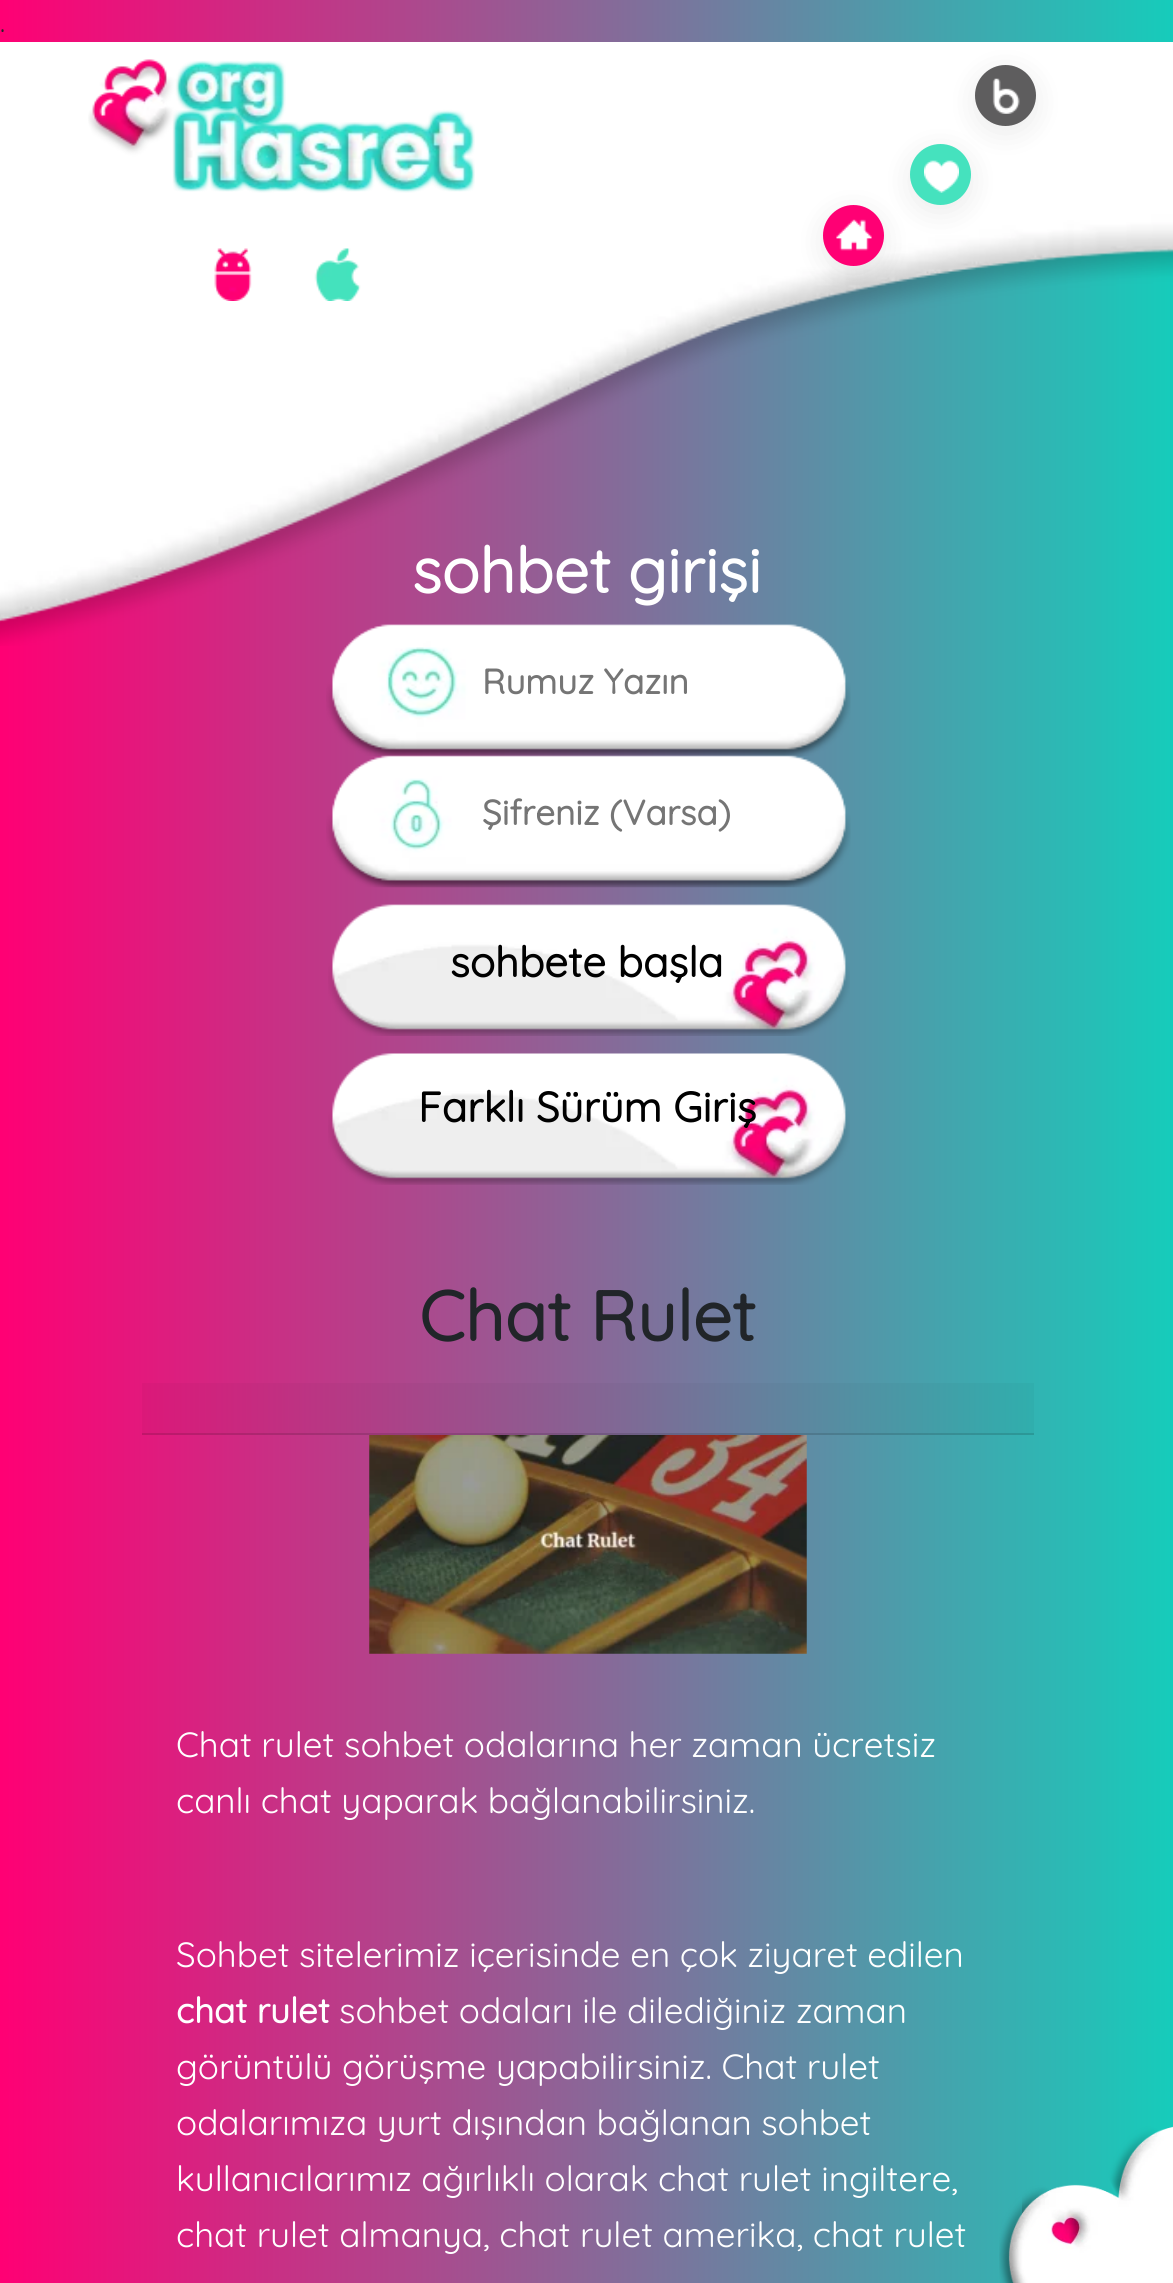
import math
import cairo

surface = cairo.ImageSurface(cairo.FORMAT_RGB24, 1173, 2283)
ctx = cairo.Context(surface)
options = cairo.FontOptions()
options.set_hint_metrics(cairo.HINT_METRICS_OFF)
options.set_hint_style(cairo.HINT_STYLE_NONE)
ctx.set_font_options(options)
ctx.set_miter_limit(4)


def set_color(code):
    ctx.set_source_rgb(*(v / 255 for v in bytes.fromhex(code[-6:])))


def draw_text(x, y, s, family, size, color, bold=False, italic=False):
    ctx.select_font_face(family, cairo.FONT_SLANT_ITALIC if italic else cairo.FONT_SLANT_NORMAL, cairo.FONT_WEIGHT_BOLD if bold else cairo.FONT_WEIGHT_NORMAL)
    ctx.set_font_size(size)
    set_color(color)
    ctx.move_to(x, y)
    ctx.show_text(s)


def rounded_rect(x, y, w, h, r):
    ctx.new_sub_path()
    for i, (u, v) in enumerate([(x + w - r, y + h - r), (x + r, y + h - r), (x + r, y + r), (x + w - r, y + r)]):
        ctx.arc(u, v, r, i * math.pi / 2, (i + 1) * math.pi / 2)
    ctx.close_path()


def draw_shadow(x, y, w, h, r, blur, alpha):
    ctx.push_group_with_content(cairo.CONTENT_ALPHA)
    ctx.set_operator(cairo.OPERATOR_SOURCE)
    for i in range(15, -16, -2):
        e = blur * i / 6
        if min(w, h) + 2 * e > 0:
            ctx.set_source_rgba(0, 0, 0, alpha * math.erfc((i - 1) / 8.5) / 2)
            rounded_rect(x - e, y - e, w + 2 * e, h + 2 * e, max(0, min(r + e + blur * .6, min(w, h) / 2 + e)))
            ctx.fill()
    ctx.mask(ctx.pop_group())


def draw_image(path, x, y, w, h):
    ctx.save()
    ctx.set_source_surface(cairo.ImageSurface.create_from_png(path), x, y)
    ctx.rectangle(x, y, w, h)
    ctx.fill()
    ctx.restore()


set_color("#ffffff")
ctx.paint()
gradient = cairo.LinearGradient(0, 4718, 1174, 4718)
gradient.add_color_stop_rgba(0, 1, 0, 0.455, 1)
gradient.add_color_stop_rgba(1, 0.086, 0.8, 0.733, 1)
ctx.set_source(gradient)
ctx.rectangle(0, 0, 1173, 2283)
ctx.fill()
gradient = cairo.LinearGradient(0, 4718, 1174, 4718)
gradient.add_color_stop_rgba(0, 0.969, 0, 0.443, 1)
gradient.add_color_stop_rgba(1, 0.082, 0.776, 0.71, 1)
ctx.set_source(gradient)
ctx.rectangle(142, 1383, 892, 50)
ctx.fill()
gradient = cairo.LinearGradient(0, 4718, 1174, 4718)
gradient.add_color_stop_rgba(0, 0.851, 0, 0.388, 1)
gradient.add_color_stop_rgba(1, 0.071, 0.682, 0.624, 1)
ctx.set_source(gradient)
ctx.rectangle(142, 1433, 892, 2)
ctx.fill()
draw_image("assets/img1.png", 0, 42, 1173, 604)
draw_image("assets/img2.png", 88, 59, 387, 134)
draw_image("assets/img3.png", 214, 248, 38, 53)
draw_image("assets/img4.png", 314, 248, 47, 53)
set_color("#000000")
draw_shadow(823, 212, 61, 61, 30.5, 15, 0.08)
set_color("#ff0074")
ctx.arc(853.5, 235.5, 30.5, 0, 2 * math.pi)
ctx.fill()
draw_image("assets/img6.png", 836, 219, 36, 32)
set_color("#000000")
draw_shadow(910, 151, 61, 61, 30.5, 15, 0.08)
set_color("#45e2be")
ctx.arc(940.5, 174.5, 30.5, 0, 2 * math.pi)
ctx.fill()
draw_image("assets/img7.png", 924, 160, 35, 33)
set_color("#000000")
draw_shadow(975, 72, 61, 61, 30.5, 15, 0.08)
set_color("#5e5d5e")
ctx.arc(1005.5, 95.5, 30.5, 0, 2 * math.pi)
ctx.fill()
draw_image("assets/img5.png", 992, 78, 28, 36)
draw_text(0, 32, ".", "Quicksand Light", 28, "#212529")
draw_text(412, 593, "sohbet girişi", "Quicksand", 63, "#ffffff", bold=True)
draw_image("assets/img8.png", 326, 624, 525, 132)
draw_text(482, 694, "Rumuz Yazın", "Quicksand", 35, "#757575", bold=True)
draw_image("assets/img9.png", 326, 755, 525, 133)
draw_text(482, 825, "Şifreniz (Varsa)", "Quicksand", 35, "#757575", bold=True)
draw_image("assets/img10.png", 328, 904, 522, 132)
draw_text(450, 977, "sohbete başla", "Quicksand", 42, "#000000", bold=True)
draw_image("assets/img11.png", 328, 1053, 522, 132)
draw_text(418, 1122, "Farklı Sürüm Giriş", "Quicksand", 42, "#000000", bold=True)
draw_text(419, 1341, "Chat Rulet", "Quicksand", 70, "#212529", bold=True)
draw_image("assets/img12.png", 369, 1435, 438, 219)
draw_text(176, 1757, "Chat rulet sohbet odalarına her zaman ücretsiz", "Quicksand Light", 35, "#ffffff")
draw_text(176, 1813, "canlı chat yaparak bağlanabilirsiniz.", "Quicksand Light", 35, "#ffffff")
draw_text(176, 1967, "Sohbet sitelerimiz içerisinde en çok ziyaret edilen", "Quicksand Light", 35, "#ffffff")
draw_text(176, 2023, "chat rulet", "Quicksand", 35, "#ffffff", bold=True)
draw_text(339, 2023, "sohbet odaları ile dilediğiniz zaman", "Quicksand Light", 35, "#ffffff")
draw_text(176, 2079, "görüntülü görüşme yapabilirsiniz. Chat rulet", "Quicksand Light", 35, "#ffffff")
draw_text(176, 2135, "odalarımıza yurt dışından bağlanan sohbet", "Quicksand Light", 35, "#ffffff")
draw_text(176, 2191, "kullanıcılarımız ağırlıklı olarak chat rulet ingiltere,", "Quicksand Light", 35, "#ffffff")
draw_text(176, 2247, "chat rulet almanya, chat rulet amerika, chat rulet", "Quicksand Light", 35, "#ffffff")
draw_image("assets/img13.png", 999, 2126, 174, 157)
surface.write_to_png("output.png")
